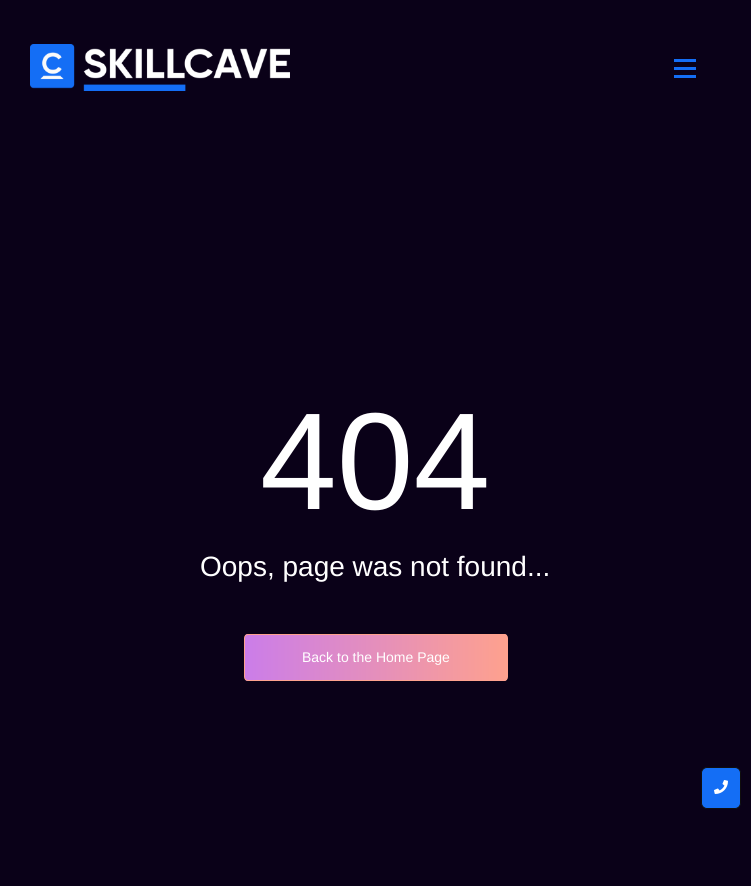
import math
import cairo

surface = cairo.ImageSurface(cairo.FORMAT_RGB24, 751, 886)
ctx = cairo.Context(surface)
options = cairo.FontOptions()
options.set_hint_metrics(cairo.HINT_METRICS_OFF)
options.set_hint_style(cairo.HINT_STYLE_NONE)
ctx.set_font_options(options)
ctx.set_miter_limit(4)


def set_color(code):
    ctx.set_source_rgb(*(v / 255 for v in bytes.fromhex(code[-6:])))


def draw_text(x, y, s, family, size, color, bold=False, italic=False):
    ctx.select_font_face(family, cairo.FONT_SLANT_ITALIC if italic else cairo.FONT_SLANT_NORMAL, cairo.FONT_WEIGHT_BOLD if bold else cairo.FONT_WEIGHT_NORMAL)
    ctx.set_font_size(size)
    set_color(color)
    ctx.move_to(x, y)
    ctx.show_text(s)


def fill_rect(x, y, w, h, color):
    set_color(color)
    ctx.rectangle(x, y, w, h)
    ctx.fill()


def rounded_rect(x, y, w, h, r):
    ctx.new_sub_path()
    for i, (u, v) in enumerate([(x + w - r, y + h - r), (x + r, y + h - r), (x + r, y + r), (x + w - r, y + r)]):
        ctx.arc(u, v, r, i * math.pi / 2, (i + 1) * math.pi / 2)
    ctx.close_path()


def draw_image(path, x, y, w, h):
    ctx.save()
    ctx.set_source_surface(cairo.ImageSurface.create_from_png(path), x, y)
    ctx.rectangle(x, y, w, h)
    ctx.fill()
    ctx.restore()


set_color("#0a0118")
ctx.paint()
draw_image("assets/img1.png", 30, 44, 260, 47)
fill_rect(674, 59, 22, 3, "#146ef5")
fill_rect(674, 67, 22, 3, "#146ef5")
fill_rect(674, 75, 22, 3, "#146ef5")
draw_text(260, 509, "404", "Liberation Sans", 138, "#ffffff")
draw_text(200, 576, "Oops, page was not found...", "Liberation Sans", 28, "#ffffff")
ctx.save()
rounded_rect(244, 634, 264, 47, 4)
ctx.clip()
gradient = cairo.LinearGradient(245, 658, 507, 658)
gradient.add_color_stop_rgba(0, 0.796, 0.49, 0.914, 1)
gradient.add_color_stop_rgba(1, 0.996, 0.631, 0.557, 1)
ctx.set_source(gradient)
ctx.rectangle(245, 634, 262, 47)
ctx.fill()
ctx.restore()
rounded_rect(244.5, 634.5, 263, 46, 3.5)
set_color("#fea18e")
ctx.set_line_width(1)
ctx.stroke()
draw_text(302, 662, "Back to the Home Page", "Liberation Sans", 14, "#ffffff")
set_color("#146ef5")
rounded_rect(701.5, 767.5, 39, 41, 5.5)
ctx.fill_preserve()
set_color("#100e0d")
ctx.stroke()
draw_image("assets/img2.png", 714, 780, 14, 14)
surface.write_to_png("output.png")
